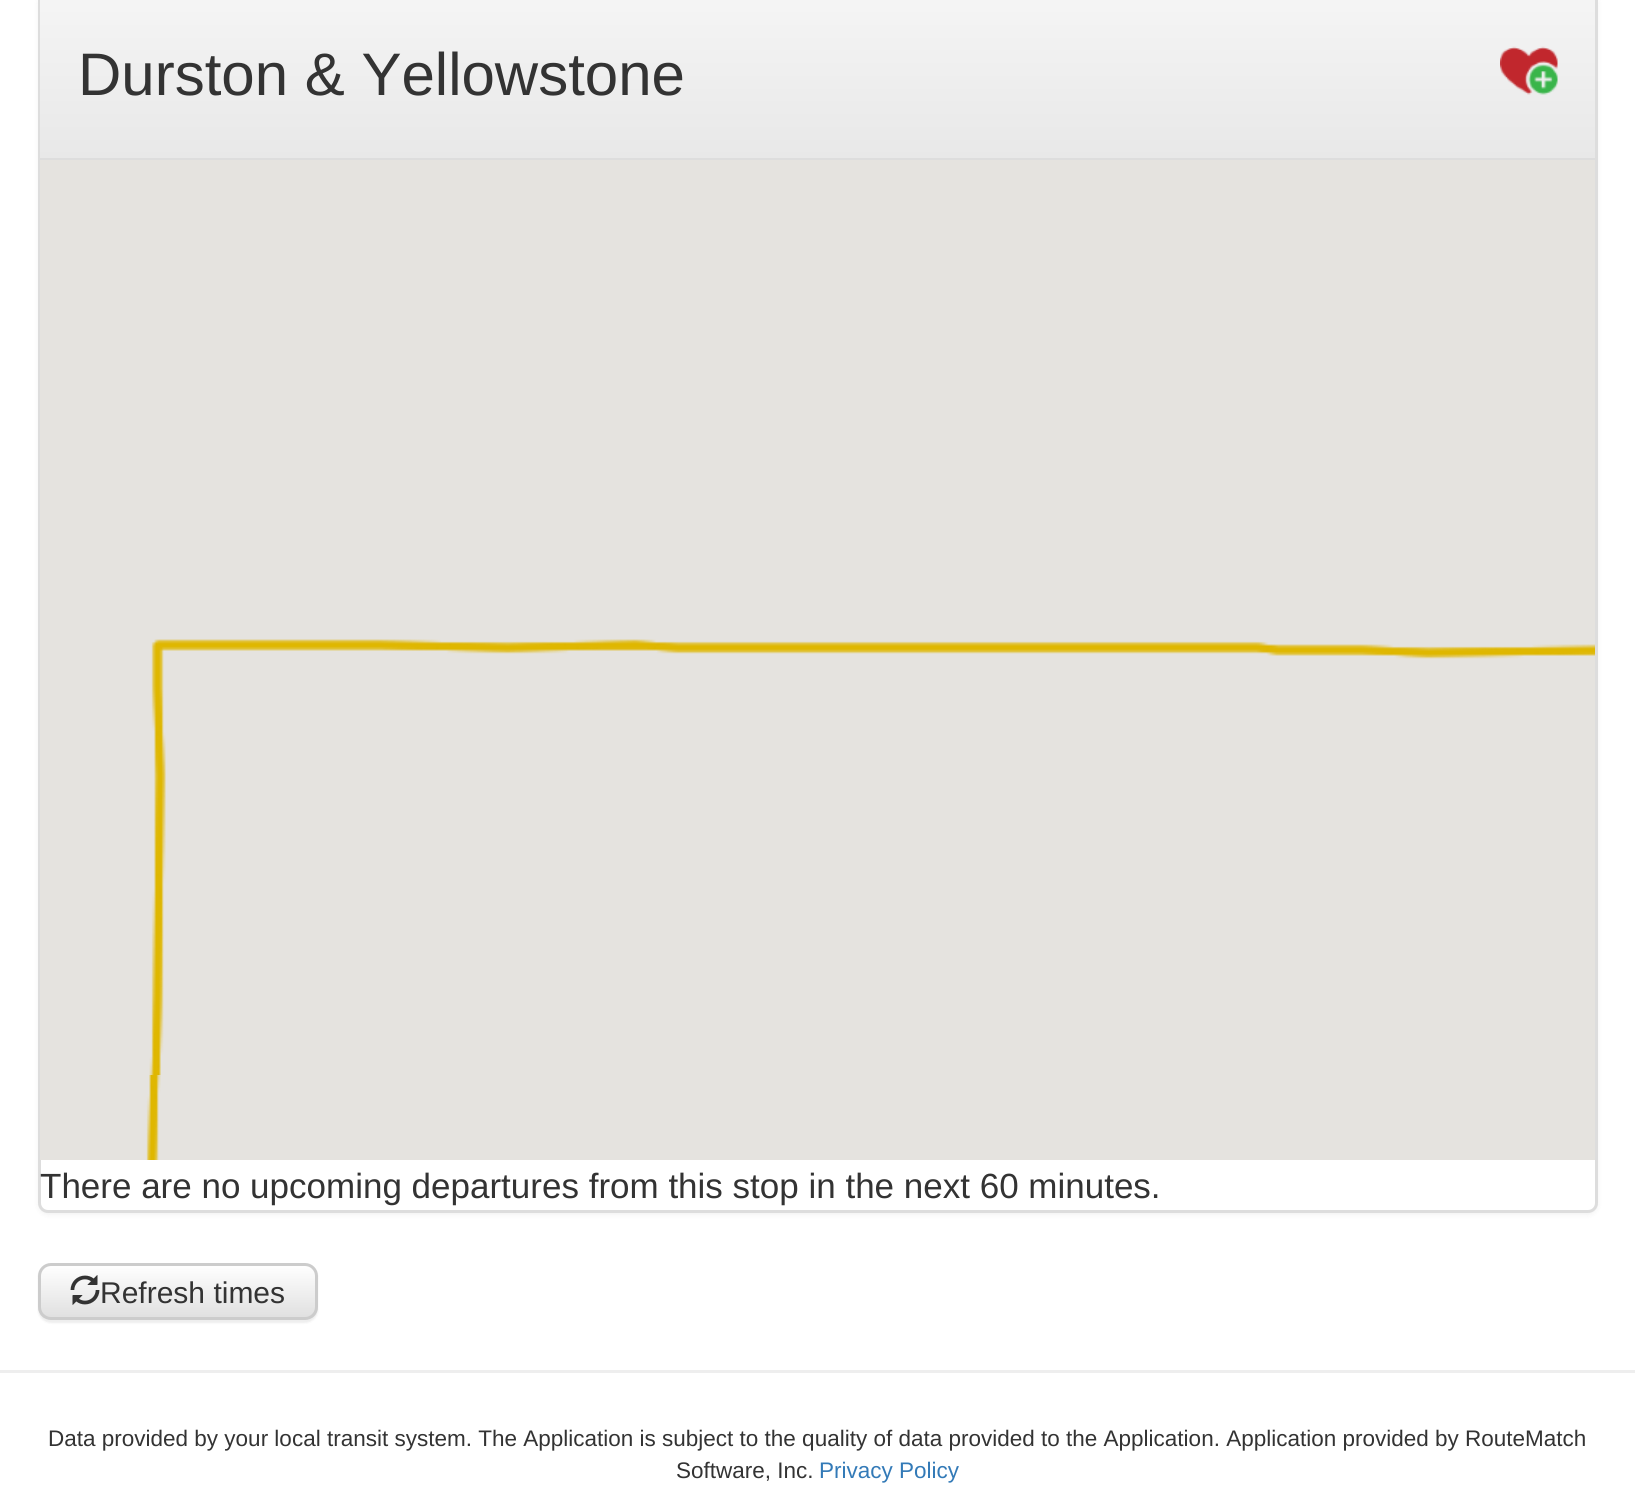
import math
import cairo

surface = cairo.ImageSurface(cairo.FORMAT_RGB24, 1635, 1499)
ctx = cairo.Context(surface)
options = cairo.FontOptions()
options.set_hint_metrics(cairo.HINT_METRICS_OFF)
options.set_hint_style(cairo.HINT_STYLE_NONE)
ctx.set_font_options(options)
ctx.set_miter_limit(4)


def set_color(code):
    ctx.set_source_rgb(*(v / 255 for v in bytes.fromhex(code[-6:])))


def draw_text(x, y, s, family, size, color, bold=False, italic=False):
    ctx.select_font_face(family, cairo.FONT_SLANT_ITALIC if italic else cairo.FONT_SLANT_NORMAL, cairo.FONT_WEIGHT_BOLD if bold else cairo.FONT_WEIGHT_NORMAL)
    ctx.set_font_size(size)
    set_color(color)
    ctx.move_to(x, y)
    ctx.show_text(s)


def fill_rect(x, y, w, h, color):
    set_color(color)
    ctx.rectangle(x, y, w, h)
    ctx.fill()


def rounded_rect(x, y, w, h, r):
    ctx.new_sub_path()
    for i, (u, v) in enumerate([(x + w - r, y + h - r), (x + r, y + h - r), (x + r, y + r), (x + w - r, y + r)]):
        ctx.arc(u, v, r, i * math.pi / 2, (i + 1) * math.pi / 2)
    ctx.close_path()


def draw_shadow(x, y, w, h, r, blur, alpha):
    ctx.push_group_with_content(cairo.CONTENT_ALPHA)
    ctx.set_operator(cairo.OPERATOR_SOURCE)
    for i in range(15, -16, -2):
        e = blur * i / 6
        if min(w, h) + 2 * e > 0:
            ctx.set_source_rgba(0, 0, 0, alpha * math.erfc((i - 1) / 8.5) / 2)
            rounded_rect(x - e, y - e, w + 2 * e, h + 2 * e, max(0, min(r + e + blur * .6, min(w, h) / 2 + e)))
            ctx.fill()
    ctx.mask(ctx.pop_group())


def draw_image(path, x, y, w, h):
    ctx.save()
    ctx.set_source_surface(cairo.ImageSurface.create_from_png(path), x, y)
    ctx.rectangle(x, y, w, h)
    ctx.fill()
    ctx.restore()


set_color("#ffffff")
ctx.paint()
set_color("#000000")
draw_shadow(38, -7, 1560, 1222, 10, 2.5, 0.05)
set_color("#ffffff")
rounded_rect(39.5, -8.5, 1557, 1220, 8.5)
ctx.fill_preserve()
set_color("#dddddd")
ctx.set_line_width(3)
ctx.stroke()
gradient = cairo.LinearGradient(818, -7.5, 818, 158)
gradient.add_color_stop_rgba(0, 0.961, 0.961, 0.961, 1)
gradient.add_color_stop_rgba(1, 0.91, 0.91, 0.91, 1)
ctx.set_source(gradient)
ctx.rectangle(40, 0, 1555, 158)
ctx.fill()
fill_rect(40, 158, 1555, 2, "#dddddd")
draw_text(78, 95, "Durston & Yellowstone", "Liberation Sans", 60, "#333333")
draw_image("assets/img1.png", 1500, 46, 58, 49)
fill_rect(40, 160, 1555, 1000, "#e5e3df")
draw_image("assets/img2.png", 149, 639, 621, 436)
draw_image("assets/img3.png", 770, 641, 640, 18)
draw_image("assets/img4.png", 1410, 644, 185, 15)
draw_image("assets/img5.png", 146, 1075, 15, 85)
draw_text(40, 1198, "There are no upcoming departures from this stop in the next 60 minutes.", "Liberation Sans", 35, "#333333")
set_color("#000000")
draw_shadow(38, 1265, 280, 58, 13, 1, 0.07)
ctx.save()
rounded_rect(38, 1263, 280, 57, 13)
ctx.clip()
gradient = cairo.LinearGradient(178, 1265, 178, 1318)
gradient.add_color_stop_rgba(0, 1, 1, 1, 1)
gradient.add_color_stop_rgba(1, 0.878, 0.878, 0.878, 1)
ctx.set_source(gradient)
ctx.rectangle(38, 1265, 280, 53)
ctx.fill()
ctx.restore()
rounded_rect(39.5, 1264.5, 277, 54, 11.5)
set_color("#cccccc")
ctx.stroke()
draw_image("assets/img6.png", 70, 1275, 30, 30)
draw_text(100, 1303, "Refresh times", "Liberation Sans", 30, "#333333")
fill_rect(0, 1370, 1635, 3, "#eeeeee")
draw_text(48, 1446, "Data provided by your local transit system. The Application is subject to the quality of data provided to the Application. Application provided by RouteMatch", "Liberation Sans", 22.5, "#333333")
draw_text(676, 1478, "Software, Inc.", "Liberation Sans", 22.5, "#333333")
draw_text(819, 1478, "Privacy Policy", "Liberation Sans", 22.5, "#337ab7")
surface.write_to_png("output.png")
